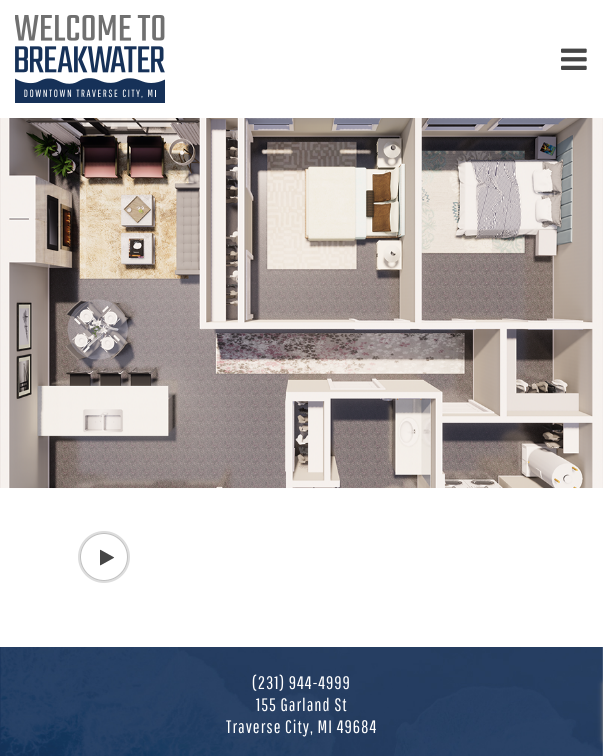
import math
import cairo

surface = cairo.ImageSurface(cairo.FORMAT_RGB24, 603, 756)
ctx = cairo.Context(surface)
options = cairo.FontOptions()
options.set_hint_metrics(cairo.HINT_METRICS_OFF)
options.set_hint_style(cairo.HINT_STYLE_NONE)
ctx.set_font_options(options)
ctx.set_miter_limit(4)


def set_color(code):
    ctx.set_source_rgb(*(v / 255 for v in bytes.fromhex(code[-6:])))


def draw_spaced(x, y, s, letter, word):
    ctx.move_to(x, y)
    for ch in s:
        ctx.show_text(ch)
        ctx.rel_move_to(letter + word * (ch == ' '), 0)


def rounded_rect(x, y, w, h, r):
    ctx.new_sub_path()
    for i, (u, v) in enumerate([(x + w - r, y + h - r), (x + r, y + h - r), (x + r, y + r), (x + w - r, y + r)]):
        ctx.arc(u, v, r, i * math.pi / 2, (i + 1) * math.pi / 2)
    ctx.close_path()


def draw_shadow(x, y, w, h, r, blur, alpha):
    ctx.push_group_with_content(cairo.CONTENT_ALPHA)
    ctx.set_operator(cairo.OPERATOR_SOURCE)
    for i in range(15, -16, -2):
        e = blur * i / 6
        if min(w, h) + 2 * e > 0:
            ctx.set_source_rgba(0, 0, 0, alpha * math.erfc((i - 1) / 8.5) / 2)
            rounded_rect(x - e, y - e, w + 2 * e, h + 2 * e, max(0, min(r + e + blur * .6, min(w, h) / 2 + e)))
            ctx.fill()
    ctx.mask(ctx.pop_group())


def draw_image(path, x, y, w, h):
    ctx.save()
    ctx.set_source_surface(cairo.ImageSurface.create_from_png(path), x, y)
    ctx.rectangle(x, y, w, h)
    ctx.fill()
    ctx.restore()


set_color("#ffffff")
ctx.paint()
draw_image("assets/img1.png", 15, 15, 150, 88)
draw_image("assets/img2.png", 0, 118, 603, 371)
ctx.arc(104, 557, 25, 0, 2 * math.pi)
set_color("#dddddd")
ctx.stroke()
draw_image("assets/img3.png", 100, 549, 15, 17)
ctx.arc(104, 557, 23.5, 0, 2 * math.pi)
ctx.set_source_rgba(0.439, 0.439, 0.439, 0.24)
ctx.set_line_width(1)
ctx.stroke()
ctx.arc(104, 557, 23.5, 0, 2 * math.pi)
ctx.stroke()
draw_image("assets/img4.png", 561, 48, 26, 22)
draw_image("assets/img5.png", 0, 647, 603, 109)
ctx.select_font_face("Pathway Gothic One")
ctx.set_font_size(18)
set_color("#ffffff")
draw_spaced(252, 689, "(231) 944-4999", 1, 0)
draw_spaced(256, 711, "155 Garland St", 1, 0)
draw_spaced(226, 733, "Traverse City, MI 49684", 1, 0)
set_color("#808080")
draw_shadow(603, 682, 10, 60, 2, 2.5, 1)
surface.write_to_png("output.png")
